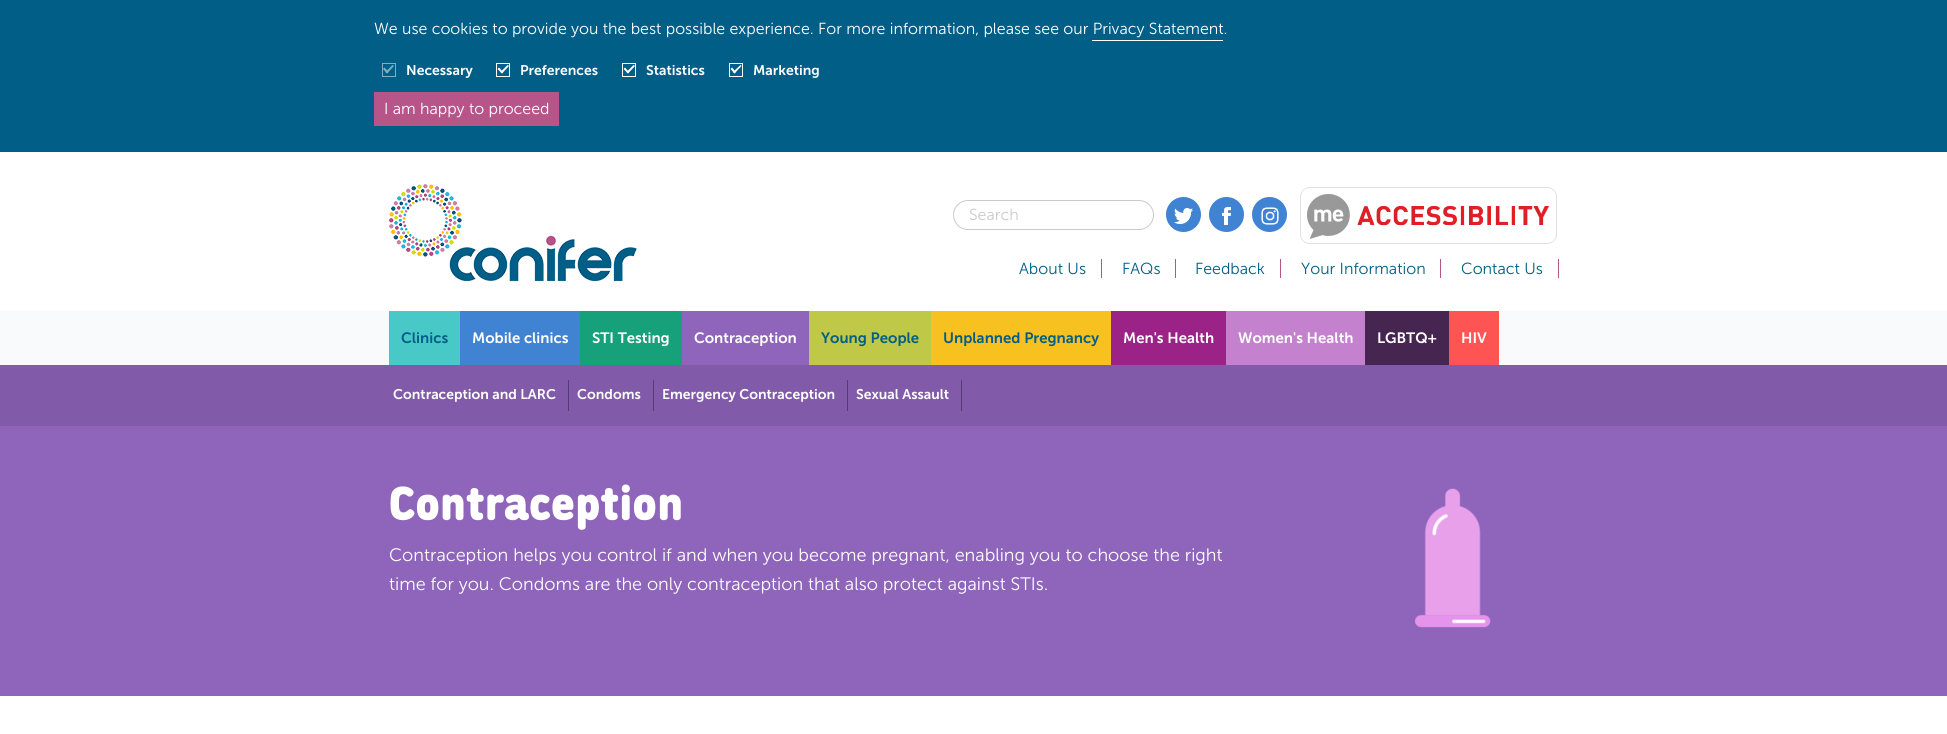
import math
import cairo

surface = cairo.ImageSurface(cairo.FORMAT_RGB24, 1947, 734)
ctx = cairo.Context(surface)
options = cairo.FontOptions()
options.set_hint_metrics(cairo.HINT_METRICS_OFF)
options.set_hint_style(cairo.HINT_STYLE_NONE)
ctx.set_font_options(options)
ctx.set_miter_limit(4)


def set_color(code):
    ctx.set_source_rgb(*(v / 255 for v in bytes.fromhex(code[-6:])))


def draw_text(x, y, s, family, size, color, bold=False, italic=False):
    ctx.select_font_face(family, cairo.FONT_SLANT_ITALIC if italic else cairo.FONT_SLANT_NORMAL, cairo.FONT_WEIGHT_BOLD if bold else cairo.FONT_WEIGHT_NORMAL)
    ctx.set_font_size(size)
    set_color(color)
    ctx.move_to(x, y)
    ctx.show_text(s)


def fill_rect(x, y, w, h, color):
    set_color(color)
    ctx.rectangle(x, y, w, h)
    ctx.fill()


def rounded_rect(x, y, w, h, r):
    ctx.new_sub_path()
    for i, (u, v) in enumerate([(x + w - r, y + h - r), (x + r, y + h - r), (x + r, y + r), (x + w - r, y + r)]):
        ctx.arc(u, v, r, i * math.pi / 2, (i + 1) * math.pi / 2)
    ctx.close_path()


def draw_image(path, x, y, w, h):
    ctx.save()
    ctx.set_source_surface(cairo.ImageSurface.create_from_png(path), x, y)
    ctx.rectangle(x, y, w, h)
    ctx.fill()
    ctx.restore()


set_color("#ffffff")
ctx.paint()
fill_rect(0, 0, 1947, 152, "#005e87")
draw_text(374, 34, "We use cookies to provide you the best possible experience. For more information, please see our Privacy Statement.", "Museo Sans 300 Light", 16, "#ffffff")
fill_rect(1092, 40, 131, 1, "#ffffff")
ctx.rectangle(382.5, 63.5, 13, 13)
set_color("#80afc3")
ctx.set_line_width(1)
ctx.stroke()
ctx.new_path()
ctx.move_to(385.5, 72)
ctx.line_to(392.5, 65)
ctx.line_to(394, 66)
ctx.line_to(387, 73.5)
ctx.close_path()
ctx.fill()
ctx.new_path()
ctx.move_to(383, 69)
ctx.line_to(384.5, 67.5)
ctx.line_to(388.5, 72)
ctx.line_to(387, 73.5)
ctx.close_path()
ctx.fill()
draw_text(406, 75, "Necessary", "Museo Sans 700 SemiBold", 14, "#ffffff")
ctx.rectangle(496.5, 63.5, 13, 13)
ctx.stroke()
ctx.new_path()
ctx.move_to(500.5, 72)
ctx.line_to(507.5, 65)
ctx.line_to(509, 66)
ctx.line_to(502, 73.5)
ctx.close_path()
ctx.fill()
ctx.new_path()
ctx.move_to(497.5, 69)
ctx.line_to(499, 67.5)
ctx.line_to(503, 72)
ctx.line_to(502, 73.5)
ctx.close_path()
ctx.fill()
draw_text(520, 75, "Preferences", "Museo Sans 700 SemiBold", 14, "#ffffff")
ctx.rectangle(622.5, 63.5, 13, 13)
ctx.stroke()
draw_text(646, 75, "Statistics", "Museo Sans 700 SemiBold", 14, "#ffffff")
ctx.new_path()
ctx.move_to(626.5, 72)
ctx.line_to(633.5, 65)
ctx.line_to(635, 66)
ctx.line_to(628, 73.5)
ctx.close_path()
ctx.fill()
ctx.new_path()
ctx.move_to(623.5, 69)
ctx.line_to(625, 67.5)
ctx.line_to(629, 72)
ctx.line_to(628, 73.5)
ctx.close_path()
ctx.fill()
ctx.rectangle(729.5, 63.5, 13, 13)
ctx.stroke()
ctx.new_path()
ctx.move_to(733, 72)
ctx.line_to(740.5, 65)
ctx.line_to(741.5, 66)
ctx.line_to(734.5, 73.5)
ctx.close_path()
ctx.fill()
ctx.new_path()
ctx.move_to(730.5, 69)
ctx.line_to(732, 67.5)
ctx.line_to(736, 72)
ctx.line_to(734.5, 73.5)
ctx.close_path()
ctx.fill()
draw_text(753, 75, "Marketing", "Museo Sans 700 SemiBold", 14, "#ffffff")
fill_rect(374, 92, 185, 34, "#b7558a")
draw_text(384, 114, "I am happy to proceed", "Museo Sans 300 Light", 16, "#ffffff")
draw_image("assets/img1.png", 389, 184, 248, 97)
rounded_rect(953.5, 200.5, 200, 29, 14.5)
set_color("#cacaca")
ctx.stroke()
draw_text(969, 220, "Search", "Museo Sans 300 Light", 16, "#cacaca")
set_color("#4083d3")
ctx.new_path()
ctx.arc(1183.5, 214.5, 17.5, 0, 2 * math.pi)
ctx.fill()
draw_image("assets/img2.png", 1174, 208, 19, 16)
ctx.arc(1226.5, 214.5, 17.5, 0, 2 * math.pi)
ctx.fill()
draw_image("assets/img3.png", 1222, 207, 9, 18)
ctx.arc(1269.5, 214.5, 17.5, 0, 2 * math.pi)
ctx.fill()
draw_image("assets/img4.png", 1261, 207, 18, 18)
draw_image("assets/img5.png", 1300, 187, 257, 57)
draw_text(1019, 274, "About Us", "Museo Sans 300 Light", 16, "#005e87")
fill_rect(1101, 259, 1, 19, "#b7558a")
draw_text(1122, 274, "FAQs", "Museo Sans 300 Light", 16, "#005e87")
fill_rect(1175, 259, 1, 19, "#b7558a")
draw_text(1195, 274, "Feedback", "Museo Sans 300 Light", 16, "#005e87")
fill_rect(1280, 259, 1, 19, "#b7558a")
draw_text(1301, 274, "Your Information", "Museo Sans 300 Light", 16, "#005e87")
fill_rect(1440, 259, 1, 19, "#b7558a")
draw_text(1461, 274, "Contact Us", "Museo Sans 300 Light", 16, "#005e87")
fill_rect(1558, 259, 1, 19, "#b7558a")
fill_rect(0, 311, 1947, 54, "#f8fafb")
fill_rect(389, 311, 71, 54, "#48c8c7")
draw_text(401, 343, "Clinics", "Museo Sans 700 SemiBold", 15, "#005e87")
fill_rect(460, 311, 120, 54, "#4083d3")
draw_text(472, 343, "Mobile clinics", "Museo Sans 700 SemiBold", 15, "#ffffff")
fill_rect(580, 311, 102, 54, "#16a17b")
draw_text(592, 343, "STI Testing", "Museo Sans 700 SemiBold", 15, "#ffffff")
fill_rect(682, 311, 127, 54, "#8f64bb")
draw_text(694, 343, "Contraception", "Museo Sans 700 SemiBold", 15, "#ffffff")
fill_rect(809, 311, 122, 54, "#c0c848")
draw_text(821, 343, "Young People", "Museo Sans 700 SemiBold", 15, "#005e87")
fill_rect(931, 311, 180, 54, "#f7c220")
draw_text(943, 343, "Unplanned Pregnancy", "Museo Sans 700 SemiBold", 15, "#005e87")
fill_rect(1111, 311, 115, 54, "#9b2287")
draw_text(1123, 343, "Men's Health", "Museo Sans 700 SemiBold", 15, "#ffffff")
fill_rect(1226, 311, 139, 54, "#c482ce")
draw_text(1238, 343, "Women's Health", "Museo Sans 700 SemiBold", 15, "#ffffff")
fill_rect(1365, 311, 84, 54, "#462551")
draw_text(1377, 343, "LGBTQ+", "Museo Sans 700 SemiBold", 15, "#ffffff")
fill_rect(1449, 311, 50, 54, "#ff5454")
draw_text(1461, 343, "HIV", "Museo Sans 700 SemiBold", 15, "#ffffff")
fill_rect(0, 426, 1947, 270, "#8f64bb")
fill_rect(0, 365, 1947, 61, "#815aa9")
fill_rect(568, 380, 1, 31, "#563c71")
draw_text(393, 399, "Contraception and LARC", "Museo Sans 700 SemiBold", 14, "#ffffff")
fill_rect(653, 380, 1, 31, "#563c71")
draw_text(577, 399, "Condoms", "Museo Sans 700 SemiBold", 14, "#ffffff")
fill_rect(847, 380, 1, 31, "#563c71")
draw_text(662, 399, "Emergency Contraception", "Museo Sans 700 SemiBold", 14, "#ffffff")
fill_rect(961, 380, 1, 31, "#563c71")
draw_text(856, 399, "Sexual Assault", "Museo Sans 700 SemiBold", 14, "#ffffff")
draw_text(389, 520, "Contraception", "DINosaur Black", 48, "#ffffff")
draw_text(389, 561, "Contraception helps you control if and when you become pregnant, enabling you to choose the right", "Museo Sans 300 Light", 18, "#ffffff")
draw_text(389, 590, "time for you. Condoms are the only contraception that also protect against STIs.", "Museo Sans 300 Light", 18, "#ffffff")
draw_image("assets/img6.png", 1414, 488, 77, 140)
surface.write_to_png("output.png")
